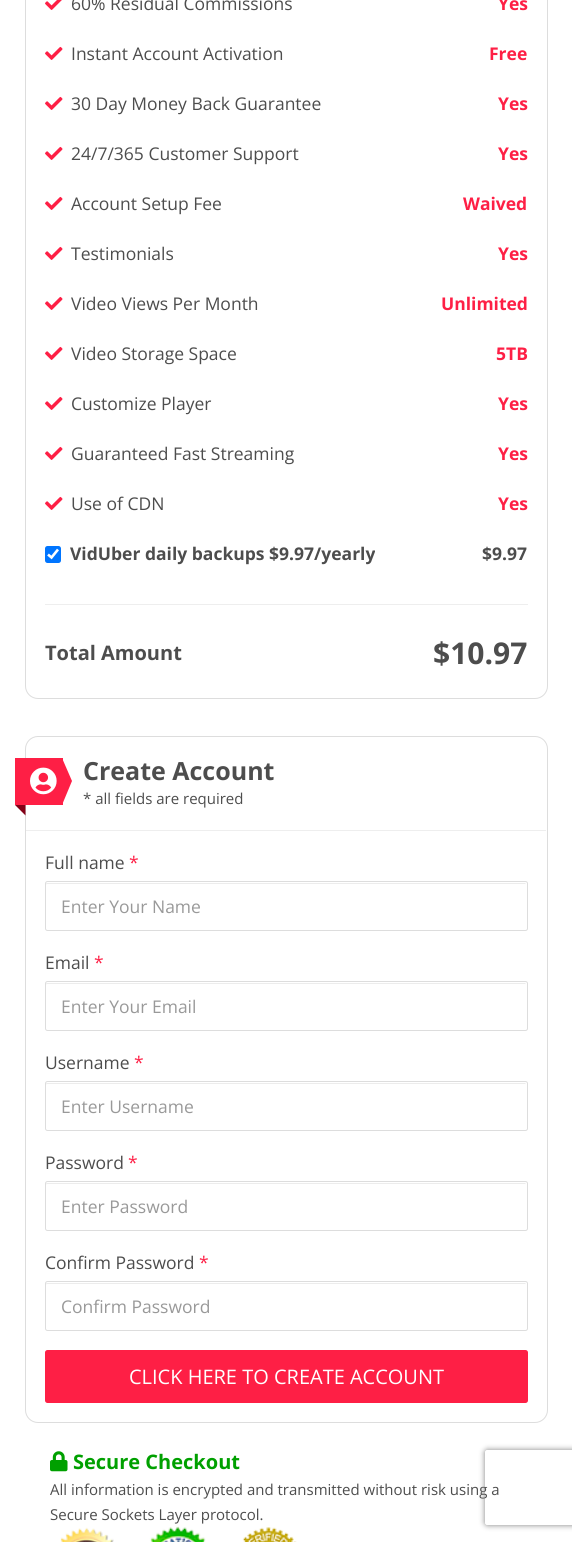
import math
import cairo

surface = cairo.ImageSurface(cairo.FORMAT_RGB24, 572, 1542)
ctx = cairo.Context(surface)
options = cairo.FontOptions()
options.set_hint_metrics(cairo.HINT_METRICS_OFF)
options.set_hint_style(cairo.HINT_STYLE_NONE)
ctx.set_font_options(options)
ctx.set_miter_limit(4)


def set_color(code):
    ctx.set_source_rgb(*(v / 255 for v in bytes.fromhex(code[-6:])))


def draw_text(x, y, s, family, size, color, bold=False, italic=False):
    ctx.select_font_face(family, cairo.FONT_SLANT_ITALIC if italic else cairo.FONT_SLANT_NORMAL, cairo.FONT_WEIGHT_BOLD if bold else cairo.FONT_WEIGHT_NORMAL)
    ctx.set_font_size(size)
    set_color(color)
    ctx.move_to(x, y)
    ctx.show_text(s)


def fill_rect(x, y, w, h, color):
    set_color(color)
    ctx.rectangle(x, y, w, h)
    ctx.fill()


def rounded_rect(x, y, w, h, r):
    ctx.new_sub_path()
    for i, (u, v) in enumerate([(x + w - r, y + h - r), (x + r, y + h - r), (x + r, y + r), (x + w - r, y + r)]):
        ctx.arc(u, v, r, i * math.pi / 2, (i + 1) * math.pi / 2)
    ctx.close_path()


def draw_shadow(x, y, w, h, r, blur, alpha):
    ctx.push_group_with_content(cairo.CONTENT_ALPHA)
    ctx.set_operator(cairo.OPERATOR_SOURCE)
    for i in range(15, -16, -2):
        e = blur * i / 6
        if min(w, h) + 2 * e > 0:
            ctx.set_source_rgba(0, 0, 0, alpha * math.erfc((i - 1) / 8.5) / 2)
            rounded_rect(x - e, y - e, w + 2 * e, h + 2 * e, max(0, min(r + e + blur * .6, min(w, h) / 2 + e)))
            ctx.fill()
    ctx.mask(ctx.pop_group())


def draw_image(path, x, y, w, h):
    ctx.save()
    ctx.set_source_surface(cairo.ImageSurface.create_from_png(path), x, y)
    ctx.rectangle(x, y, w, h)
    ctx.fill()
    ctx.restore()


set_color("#ffffff")
ctx.paint()
rounded_rect(25.5, -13.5, 522, 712, 12.5)
set_color("#dddddd")
ctx.set_line_width(1)
ctx.stroke()
draw_image("assets/img1.png", 45, 0, 17, 10)
draw_text(71, 10, "60% Residual Commissions", "Open Sans", 17.5, "#4d4d4d")
draw_text(498, 10, "Yes", "Open Sans", 17.5, "#fe1f45", bold=True)
draw_image("assets/img2.png", 45, 46, 18, 14)
draw_text(71, 60, "Instant Account Activation", "Open Sans", 17.5, "#4d4d4d")
draw_text(489, 60, "Free", "Open Sans", 17.5, "#fe1f45", bold=True)
draw_image("assets/img2.png", 45, 96, 18, 14)
draw_text(71, 110, "30 Day Money Back Guarantee", "Open Sans", 17.5, "#4d4d4d")
draw_text(498, 110, "Yes", "Open Sans", 17.5, "#fe1f45", bold=True)
draw_image("assets/img2.png", 45, 146, 18, 14)
draw_text(71, 160, "24/7/365 Customer Support", "Open Sans", 17.5, "#4d4d4d")
draw_text(498, 160, "Yes", "Open Sans", 17.5, "#fe1f45", bold=True)
draw_image("assets/img2.png", 45, 196, 18, 14)
draw_text(71, 210, "Account Setup Fee", "Open Sans", 17.5, "#4d4d4d")
draw_text(463, 210, "Waived", "Open Sans", 17.5, "#fe1f45", bold=True)
draw_image("assets/img2.png", 45, 246, 18, 14)
draw_text(71, 260, "Testimonials", "Open Sans", 17.5, "#4d4d4d")
draw_text(498, 260, "Yes", "Open Sans", 17.5, "#fe1f45", bold=True)
draw_image("assets/img2.png", 45, 296, 18, 14)
draw_text(71, 310, "Video Views Per Month", "Open Sans", 17.5, "#4d4d4d")
draw_text(441, 310, "Unlimited", "Open Sans", 17.5, "#fe1f45", bold=True)
draw_image("assets/img2.png", 45, 346, 18, 14)
draw_text(71, 360, "Video Storage Space", "Open Sans", 17.5, "#4d4d4d")
draw_text(496, 360, "5TB", "Open Sans", 17.5, "#fe1f45", bold=True)
draw_image("assets/img2.png", 45, 396, 18, 14)
draw_text(71, 410, "Customize Player", "Open Sans", 17.5, "#4d4d4d")
draw_text(498, 410, "Yes", "Open Sans", 17.5, "#fe1f45", bold=True)
draw_image("assets/img2.png", 45, 446, 18, 14)
draw_text(71, 460, "Guaranteed Fast Streaming", "Open Sans", 17.5, "#4d4d4d")
draw_text(498, 460, "Yes", "Open Sans", 17.5, "#fe1f45", bold=True)
draw_image("assets/img2.png", 45, 496, 18, 14)
draw_text(71, 510, "Use of CDN", "Open Sans", 17.5, "#4d4d4d")
draw_text(498, 510, "Yes", "Open Sans", 17.5, "#fe1f45", bold=True)
set_color("#0075ff")
rounded_rect(45, 546, 16, 17, 2.5)
ctx.fill()
ctx.new_path()
ctx.move_to(48, 554.5)
ctx.line_to(51.5, 557.5)
ctx.line_to(58, 549.5)
set_color("#ffffff")
ctx.set_line_width(2.6)
ctx.stroke()
draw_text(70, 560, "VidUber daily backups $9.97/yearly", "Open Sans", 17.5, "#4d4d4d", bold=True)
draw_text(482, 560, "$9.97", "Open Sans", 17.5, "#4d4d4d", bold=True)
fill_rect(45, 604, 483, 1, "#eeeeee")
draw_text(45, 660, "Total Amount", "Open Sans", 20, "#4d4d4d", bold=True)
draw_text(433, 664, "$10.97", "Open Sans", 30, "#4d4d4d", bold=True)
rounded_rect(25.5, 736.5, 522, 686, 12.5)
set_color("#dddddd")
ctx.set_line_width(1)
ctx.stroke()
fill_rect(15, 758, 48, 47, "#fe1f45")
draw_image("assets/img3.png", 30, 767, 27, 28)
ctx.new_path()
ctx.move_to(62, 805)
ctx.line_to(62, 758)
ctx.line_to(72, 781)
ctx.close_path()
ctx.fill()
set_color("#830117")
ctx.new_path()
ctx.move_to(25.5, 815.5)
ctx.line_to(15, 805)
ctx.line_to(25.5, 805)
ctx.close_path()
ctx.fill()
draw_text(83, 780, "Create Account", "Open Sans", 25, "#4d4d4d", bold=True)
draw_text(83, 804, "* all fields are required", "Open Sans", 15, "#4d4d4d")
fill_rect(26, 830, 520, 1, "#eeeeee")
draw_text(45, 869, "Full name", "Open Sans", 17.5, "#4d4d4d")
draw_text(129, 869, "*", "Open Sans", 17.5, "#fe1f45")
set_color("#ececec")
ctx.new_path()
ctx.move_to(48, 884)
ctx.line_to(525, 884)
ctx.curve_to(526, 884, 526, 884, 526, 885)
ctx.line_to(526, 884)
ctx.line_to(525, 883)
ctx.line_to(47, 883)
ctx.curve_to(46, 883, 46, 884, 46, 885)
ctx.curve_to(46, 884, 47, 884, 48, 884)
ctx.close_path()
ctx.fill()
rounded_rect(45.5, 881.5, 482, 49, 2)
set_color("#dddddd")
ctx.stroke()
draw_text(61, 913, "Enter Your Name", "Open Sans", 17.5, "#999999")
draw_text(45, 969, "Email", "Open Sans", 17.5, "#4d4d4d")
draw_text(94, 969, "*", "Open Sans", 17.5, "#fe1f45")
set_color("#ececec")
ctx.new_path()
ctx.move_to(48, 984)
ctx.line_to(525, 984)
ctx.curve_to(526, 984, 526, 984, 526, 985)
ctx.line_to(526, 984)
ctx.line_to(525, 983)
ctx.line_to(47, 983)
ctx.curve_to(46, 983, 46, 984, 46, 985)
ctx.curve_to(46, 984, 47, 984, 48, 984)
ctx.close_path()
ctx.fill()
rounded_rect(45.5, 981.5, 482, 49, 2)
set_color("#dddddd")
ctx.stroke()
draw_text(61, 1013, "Enter Your Email", "Open Sans", 17.5, "#999999")
draw_text(45, 1069, "Username", "Open Sans", 17.5, "#4d4d4d")
draw_text(134, 1069, "*", "Open Sans", 17.5, "#fe1f45")
set_color("#ececec")
ctx.new_path()
ctx.move_to(48, 1084)
ctx.line_to(525, 1084)
ctx.curve_to(526, 1084, 526, 1084, 526, 1085)
ctx.line_to(526, 1084)
ctx.line_to(525, 1083)
ctx.line_to(47, 1083)
ctx.curve_to(46, 1083, 46, 1084, 46, 1085)
ctx.curve_to(46, 1084, 47, 1084, 48, 1084)
ctx.close_path()
ctx.fill()
rounded_rect(45.5, 1081.5, 482, 49, 2)
set_color("#dddddd")
ctx.stroke()
draw_text(61, 1113, "Enter Username", "Open Sans", 17.5, "#999999")
draw_text(45, 1169, "Password", "Open Sans", 17.5, "#4d4d4d")
draw_text(128, 1169, "*", "Open Sans", 17.5, "#fe1f45")
set_color("#ececec")
ctx.new_path()
ctx.move_to(48, 1184)
ctx.line_to(525, 1184)
ctx.curve_to(526, 1184, 526, 1184, 526, 1185)
ctx.line_to(526, 1184)
ctx.line_to(525, 1183)
ctx.line_to(47, 1183)
ctx.curve_to(46, 1183, 46, 1184, 46, 1185)
ctx.curve_to(46, 1184, 47, 1184, 48, 1184)
ctx.close_path()
ctx.fill()
rounded_rect(45.5, 1181.5, 482, 49, 2)
set_color("#dddddd")
ctx.stroke()
draw_text(61, 1213, "Enter Password", "Open Sans", 17.5, "#999999")
draw_text(45, 1269, "Confirm Password", "Open Sans", 17.5, "#4d4d4d")
draw_text(199, 1269, "*", "Open Sans", 17.5, "#fe1f45")
set_color("#ececec")
ctx.new_path()
ctx.move_to(48, 1284)
ctx.line_to(525, 1284)
ctx.curve_to(526, 1284, 526, 1284, 526, 1285)
ctx.line_to(526, 1284)
ctx.line_to(525, 1283)
ctx.line_to(47, 1283)
ctx.curve_to(46, 1283, 46, 1284, 46, 1285)
ctx.curve_to(46, 1284, 47, 1284, 48, 1284)
ctx.close_path()
ctx.fill()
rounded_rect(45.5, 1281.5, 482, 49, 2)
set_color("#dddddd")
ctx.stroke()
draw_text(61, 1313, "Confirm Password", "Open Sans", 17.5, "#999999")
set_color("#fe1f45")
rounded_rect(45, 1350, 483, 53, 2.5)
ctx.fill()
draw_text(129, 1384, "CLICK HERE TO CREATE ACCOUNT", "Open Sans", 20, "#ffffff")
draw_image("assets/img4.png", 50, 1451, 18, 21)
draw_text(73, 1469, "Secure Checkout", "Open Sans", 20, "#00a000", bold=True)
draw_text(50, 1495, "All information is encrypted and transmitted without risk using a", "Open Sans", 15, "#4d4d4d")
draw_text(50, 1520, "Secure Sockets Layer protocol.", "Open Sans", 15, "#4d4d4d")
draw_image("assets/img5.png", 60, 1526, 237, 16)
ctx.save()
ctx.set_fill_rule(cairo.FILL_RULE_EVEN_ODD)
ctx.new_path()
ctx.move_to(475, 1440)
ctx.line_to(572, 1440)
ctx.line_to(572, 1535)
ctx.line_to(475, 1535)
ctx.close_path()
ctx.move_to(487.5, 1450)
ctx.line_to(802.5, 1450)
ctx.curve_to(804, 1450, 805, 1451, 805, 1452.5)
ctx.line_to(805, 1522.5)
ctx.curve_to(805, 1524, 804, 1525, 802.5, 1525)
ctx.line_to(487.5, 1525)
ctx.curve_to(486, 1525, 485, 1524, 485, 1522.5)
ctx.line_to(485, 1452.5)
ctx.curve_to(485, 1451, 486, 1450, 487.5, 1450)
ctx.close_path()
ctx.clip()
set_color("#808080")
draw_shadow(485, 1450, 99, 75, 2.5, 3, 1)
ctx.restore()
surface.write_to_png("output.png")
